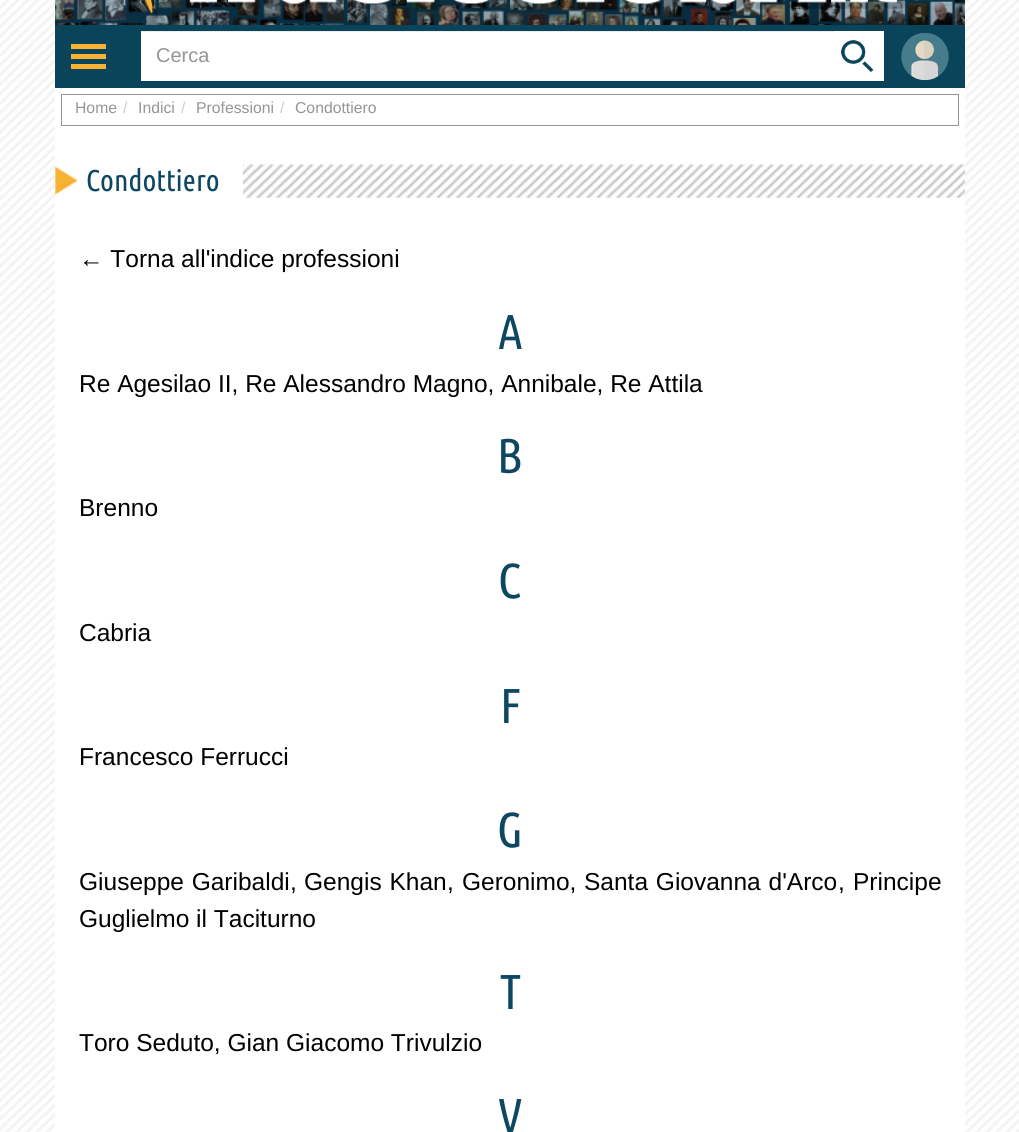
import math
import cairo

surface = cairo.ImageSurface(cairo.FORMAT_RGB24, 1019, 1132)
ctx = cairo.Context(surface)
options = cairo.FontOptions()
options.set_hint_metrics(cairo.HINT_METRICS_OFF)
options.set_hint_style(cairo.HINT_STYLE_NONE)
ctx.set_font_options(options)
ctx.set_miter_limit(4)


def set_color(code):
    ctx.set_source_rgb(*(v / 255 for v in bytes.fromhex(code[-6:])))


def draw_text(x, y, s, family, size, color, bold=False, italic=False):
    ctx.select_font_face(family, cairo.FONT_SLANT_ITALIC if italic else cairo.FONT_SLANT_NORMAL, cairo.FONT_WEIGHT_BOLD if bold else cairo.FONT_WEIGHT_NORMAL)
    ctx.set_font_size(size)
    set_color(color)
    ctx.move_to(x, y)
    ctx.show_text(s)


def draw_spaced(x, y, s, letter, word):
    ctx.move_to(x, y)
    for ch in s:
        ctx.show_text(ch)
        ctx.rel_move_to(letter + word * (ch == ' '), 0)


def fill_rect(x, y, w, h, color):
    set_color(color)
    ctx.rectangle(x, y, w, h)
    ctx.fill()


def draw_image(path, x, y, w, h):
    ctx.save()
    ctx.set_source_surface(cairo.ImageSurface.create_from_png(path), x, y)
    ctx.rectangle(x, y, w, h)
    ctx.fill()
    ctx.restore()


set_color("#ffffff")
ctx.paint()
draw_image("assets/img1.png", 0, 0, 1019, 1132)
draw_image("assets/img2.png", 55, 0, 910, 25)
draw_image("assets/img3.png", 144, 0, 759, 20)
fill_rect(55, 25, 910, 63, "#0a445b")
fill_rect(71, 44, 35, 5, "#f9b233")
fill_rect(71, 54, 35, 5, "#f9b233")
fill_rect(71, 64, 35, 5, "#f9b233")
fill_rect(141, 32, 693, 49, "#ffffff")
fill_rect(141, 31, 693, 1, "#ececec")
draw_text(156, 62, "Cerca", "Liberation Sans", 20, "#959595")
fill_rect(834, 31, 50, 50, "#ffffff")
draw_image("assets/img4.png", 841, 40, 33, 32)
draw_image("assets/img5.png", 901, 33, 48, 48)
fill_rect(55, 88, 910, 1044, "#ffffff")
ctx.rectangle(61.5, 94.5, 897, 31)
set_color("#959595")
ctx.set_line_width(1)
ctx.stroke()
draw_text(75, 113, "Home", "Liberation Sans", 15.75, "#959595")
draw_text(123, 113, "/", "Liberation Sans", 15.75, "#cccccc")
draw_text(138, 113, "Indici", "Liberation Sans", 15.75, "#959595")
draw_text(181, 113, "/", "Liberation Sans", 15.75, "#cccccc")
draw_text(196, 113, "Professioni", "Liberation Sans", 15.75, "#959595")
draw_text(280, 113, "/", "Liberation Sans", 15.75, "#cccccc")
draw_text(295, 113, "Condottiero", "Liberation Sans", 15.75, "#959595")
draw_image("assets/img6.png", 243, 164, 722, 34)
draw_image("assets/img7.png", 55, 166, 23, 30)
draw_text(86, 191, "Condottiero", "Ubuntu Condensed", 30, "#0d4761")
draw_text(79, 267, "← Torna all'indice professioni", "Liberation Sans", 24.5, "#000000")
draw_text(498, 349, "A", "Ubuntu Condensed", 49, "#0d4761")
draw_text(79, 392, "Re Agesilao II, Re Alessandro Magno, Annibale, Re Attila", "Liberation Sans", 24.5, "#000000")
draw_text(497, 473, "B", "Ubuntu Condensed", 49, "#0d4761")
draw_text(79, 516, "Brenno", "Liberation Sans", 24.5, "#000000")
draw_text(498, 598, "C", "Ubuntu Condensed", 49, "#0d4761")
draw_text(79, 641, "Cabria", "Liberation Sans", 24.5, "#000000")
draw_text(500, 723, "F", "Ubuntu Condensed", 49, "#0d4761")
draw_text(79, 765, "Francesco Ferrucci", "Liberation Sans", 24.5, "#000000")
draw_text(497, 847, "G", "Ubuntu Condensed", 49, "#0d4761")
ctx.select_font_face("Liberation Sans")
ctx.set_font_size(24.5)
set_color("#000000")
draw_spaced(79, 890, "Giuseppe Garibaldi", 0, 1)
draw_text(290, 890, ",", "Liberation Sans", 24.5, "#000000")
draw_spaced(304, 890, "Gengis Khan", 0, 1)
draw_text(447, 890, ",", "Liberation Sans", 24.5, "#000000")
draw_text(462, 890, "Geronimo,", "Liberation Sans", 24.5, "#000000")
draw_spaced(584, 890, "Santa Giovanna d'Arco", 0, 1)
draw_text(838, 890, ",", "Liberation Sans", 24.5, "#000000")
draw_text(853, 890, "Principe", "Liberation Sans", 24.5, "#000000")
draw_text(79, 927, "Guglielmo il Taciturno", "Liberation Sans", 24.5, "#000000")
draw_text(500, 1009, "T", "Ubuntu Condensed", 49, "#0d4761")
draw_text(79, 1051, "Toro Seduto, Gian Giacomo Trivulzio", "Liberation Sans", 24.5, "#000000")
draw_text(498, 1133, "V", "Ubuntu Condensed", 49, "#0d4761")
surface.write_to_png("output.png")
